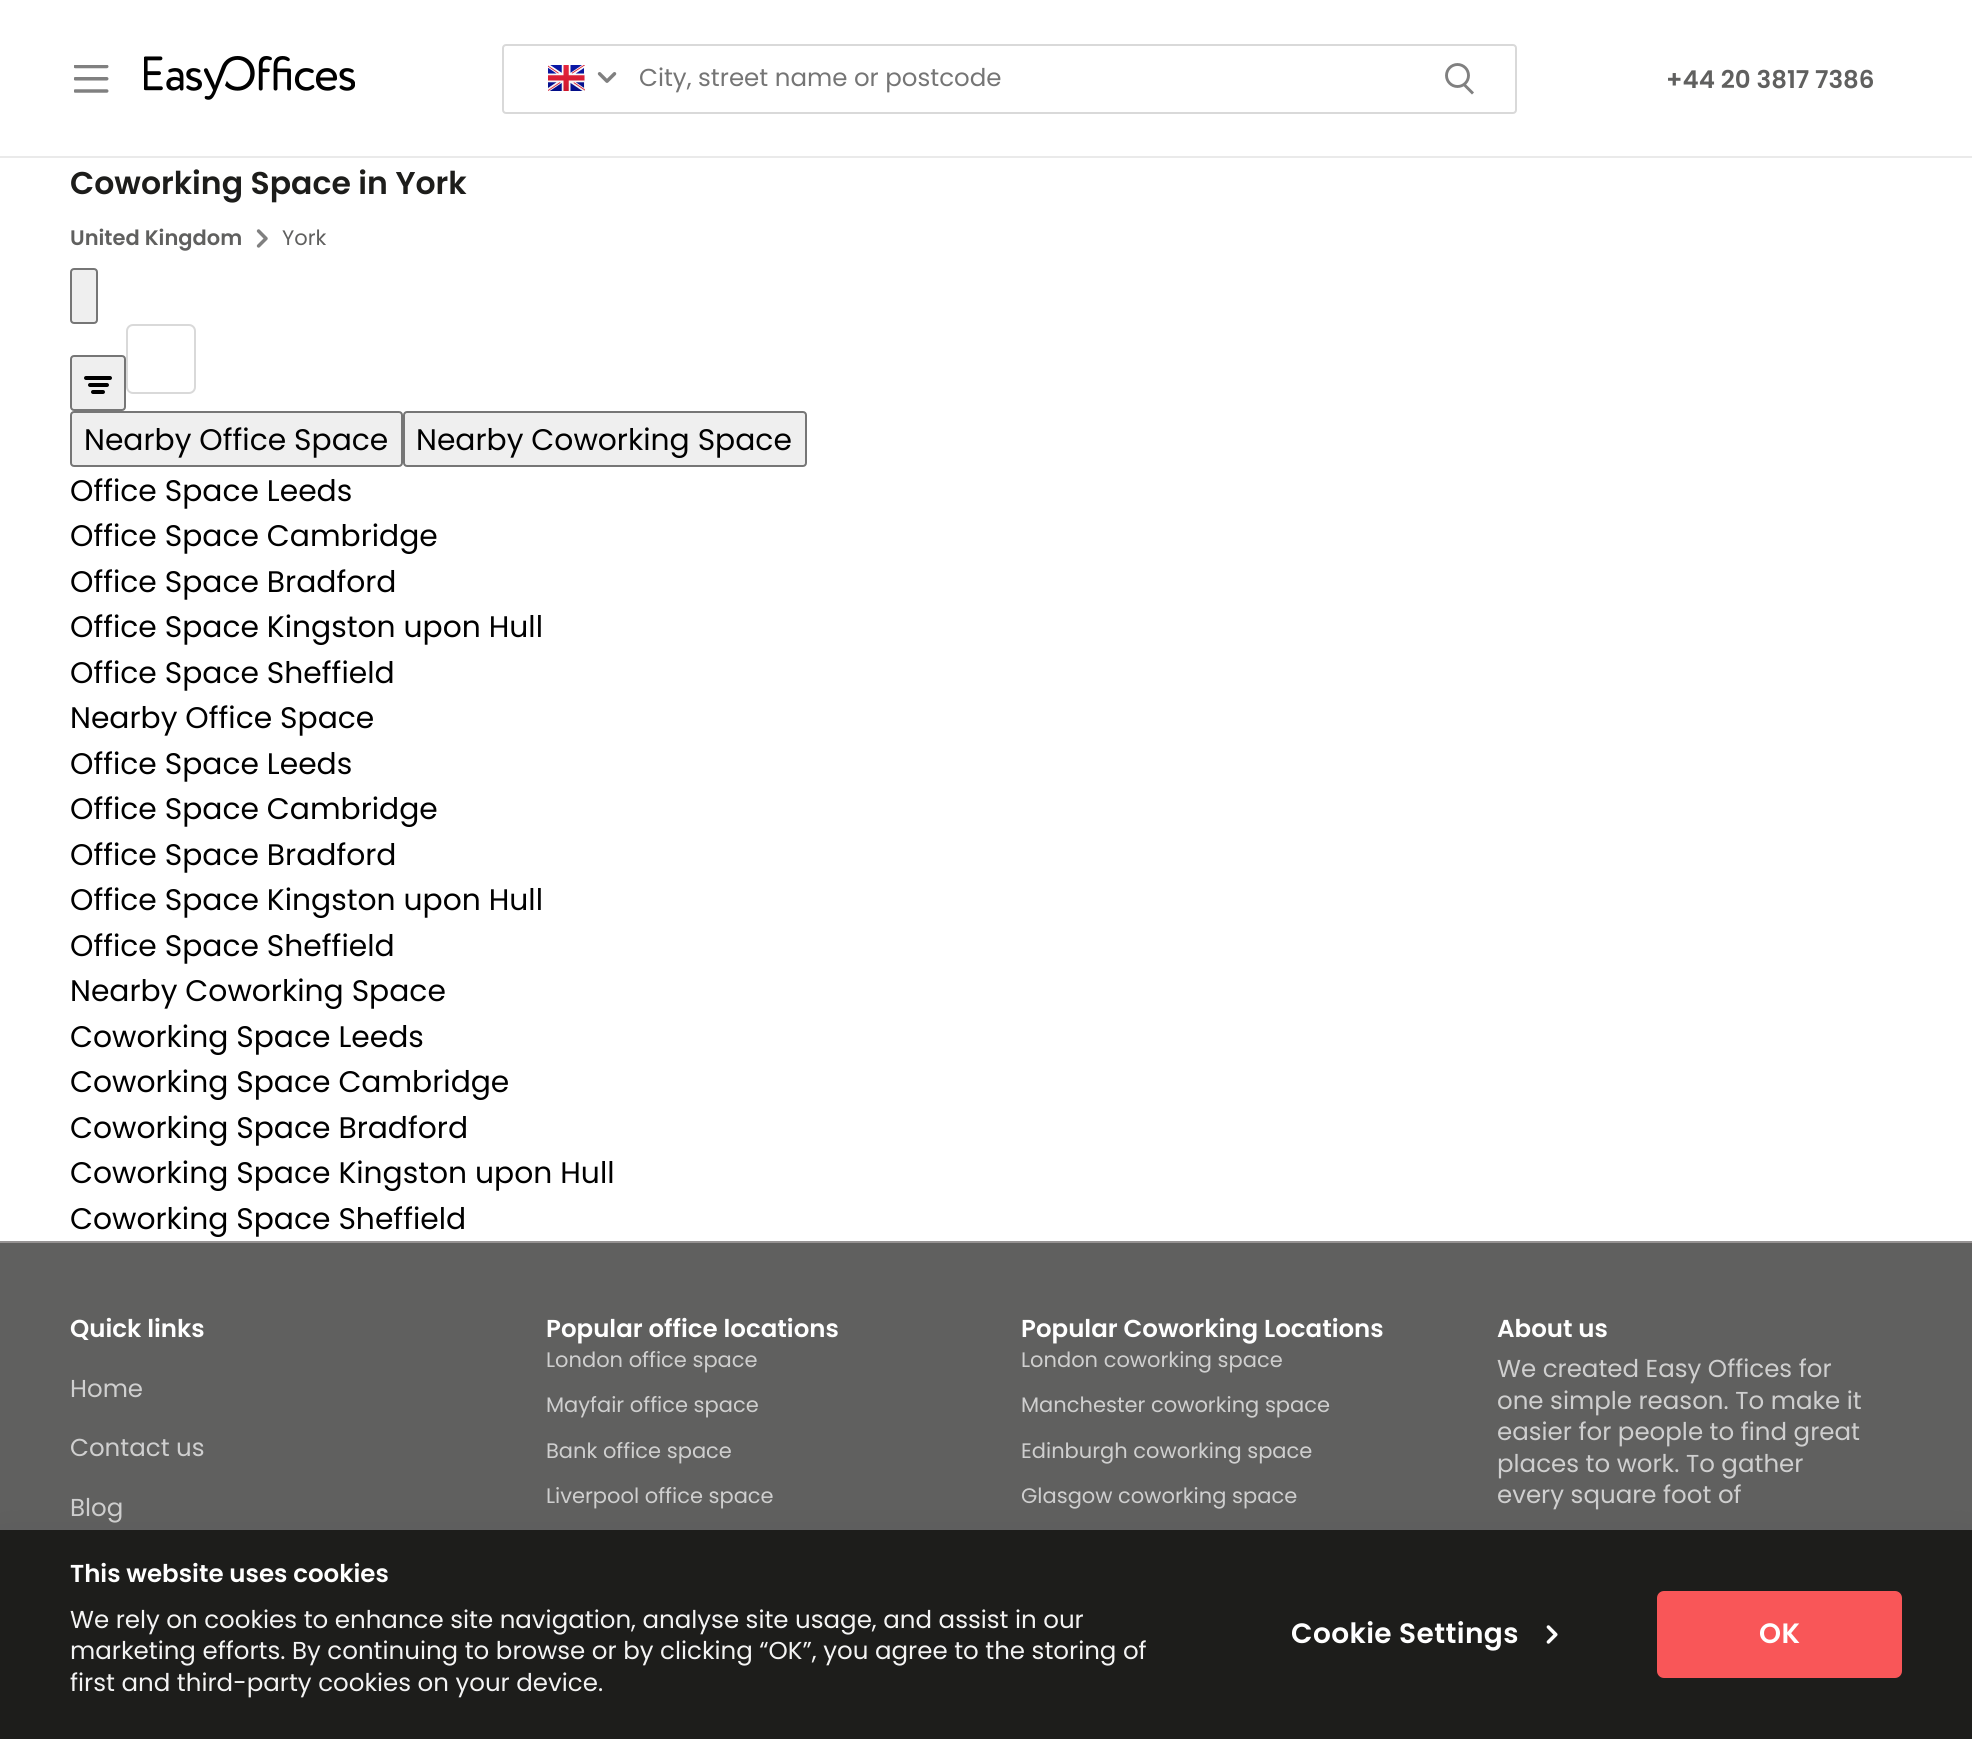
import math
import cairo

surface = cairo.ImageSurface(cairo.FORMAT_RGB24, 1972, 1739)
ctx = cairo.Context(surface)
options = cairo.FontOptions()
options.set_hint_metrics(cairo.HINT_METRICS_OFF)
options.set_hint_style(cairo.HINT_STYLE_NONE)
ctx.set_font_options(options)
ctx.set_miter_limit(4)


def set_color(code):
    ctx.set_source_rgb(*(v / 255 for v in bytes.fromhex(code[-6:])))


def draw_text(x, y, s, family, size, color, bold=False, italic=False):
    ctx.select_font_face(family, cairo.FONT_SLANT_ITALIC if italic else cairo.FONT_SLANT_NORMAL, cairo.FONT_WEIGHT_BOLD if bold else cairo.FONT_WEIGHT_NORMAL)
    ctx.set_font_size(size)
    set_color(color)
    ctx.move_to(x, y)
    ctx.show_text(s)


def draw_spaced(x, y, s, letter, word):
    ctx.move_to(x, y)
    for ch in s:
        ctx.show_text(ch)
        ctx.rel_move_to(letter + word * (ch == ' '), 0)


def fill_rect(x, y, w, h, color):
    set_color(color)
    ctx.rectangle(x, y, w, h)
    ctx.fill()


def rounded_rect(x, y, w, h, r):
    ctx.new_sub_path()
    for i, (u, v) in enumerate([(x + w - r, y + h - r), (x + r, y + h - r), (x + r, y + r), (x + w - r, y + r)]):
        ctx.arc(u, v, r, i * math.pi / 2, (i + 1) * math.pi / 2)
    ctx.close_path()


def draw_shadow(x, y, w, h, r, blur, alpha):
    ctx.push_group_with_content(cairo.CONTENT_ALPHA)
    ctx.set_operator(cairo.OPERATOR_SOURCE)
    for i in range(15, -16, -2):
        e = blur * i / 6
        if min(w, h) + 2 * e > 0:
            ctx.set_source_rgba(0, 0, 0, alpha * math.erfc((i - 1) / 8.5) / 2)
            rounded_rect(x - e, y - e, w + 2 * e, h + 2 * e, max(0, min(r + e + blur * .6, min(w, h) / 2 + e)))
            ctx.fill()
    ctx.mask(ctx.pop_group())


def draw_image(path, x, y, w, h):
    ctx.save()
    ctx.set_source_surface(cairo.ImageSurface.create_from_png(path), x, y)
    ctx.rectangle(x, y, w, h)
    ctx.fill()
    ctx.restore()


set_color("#ffffff")
ctx.paint()
fill_rect(0, 156, 1972, 2, "#eaeaea")
draw_image("assets/img1.png", 74, 65, 35, 28)
draw_image("assets/img2.png", 144, 56, 211, 44)
rounded_rect(503, 45, 1013, 68, 3)
set_color("#d9d9d9")
ctx.stroke()
draw_image("assets/img3.png", 548, 65, 37, 26)
draw_image("assets/img4.png", 597, 72, 20, 11)
draw_text(639, 86, "City, street name or postcode", "Poppins", 24.5, "#757575")
ctx.new_path()
ctx.arc(1457.5, 75.5, 11, 0, 2 * math.pi)
set_color("#808080")
ctx.set_line_width(2.9)
ctx.stroke()
ctx.new_path()
ctx.move_to(1464, 84.5)
ctx.line_to(1473, 93.5)
ctx.stroke()
draw_text(1666, 88, "+44 20 3817 7386", "Poppins SemiBold", 24.5, "#60605f")
draw_text(70, 194, "Coworking Space in York", "Poppins SemiBold", 31.5, "#1d1d1b")
draw_text(70, 245, "United Kingdom", "Poppins SemiBold", 21, "#60605f")
draw_image("assets/img5.png", 256, 229, 12, 19)
draw_text(282, 245, "York", "Poppins", 21, "#60605f")
set_color("#efefef")
rounded_rect(71, 269, 26, 54, 3)
ctx.fill_preserve()
set_color("#767676")
ctx.set_line_width(2)
ctx.stroke()
set_color("#efefef")
rounded_rect(71, 356, 54, 54, 3)
ctx.fill_preserve()
set_color("#767676")
ctx.stroke()
set_color("#000000")
rounded_rect(84, 376, 28, 4, 2)
ctx.fill()
rounded_rect(88, 383, 21, 4, 2)
ctx.fill()
rounded_rect(91, 390, 14, 4, 2)
ctx.fill()
rounded_rect(127, 325, 68, 68, 6)
set_color("#d9d9d9")
ctx.stroke()
set_color("#efefef")
rounded_rect(71, 412, 331, 54, 3)
ctx.fill_preserve()
set_color("#767676")
ctx.stroke()
draw_text(84, 450, "Nearby Office Space", "Poppins", 29.75, "#000000")
set_color("#efefef")
rounded_rect(404, 412, 402, 54, 3)
ctx.fill_preserve()
set_color("#767676")
ctx.stroke()
draw_text(416, 450, "Nearby Coworking Space", "Poppins", 29.75, "#000000")
draw_text(70, 501, "Office Space Leeds", "Poppins", 29.75, "#000000")
draw_text(70, 546, "Office Space Cambridge", "Poppins", 29.75, "#000000")
draw_text(70, 592, "Office Space Bradford", "Poppins", 29.75, "#000000")
draw_text(70, 637, "Office Space Kingston upon Hull", "Poppins", 29.75, "#000000")
draw_text(70, 683, "Office Space Sheffield", "Poppins", 29.75, "#000000")
draw_text(70, 728, "Nearby Office Space", "Poppins", 29.75, "#000000")
draw_text(70, 774, "Office Space Leeds", "Poppins", 29.75, "#000000")
draw_text(70, 819, "Office Space Cambridge", "Poppins", 29.75, "#000000")
draw_text(70, 865, "Office Space Bradford", "Poppins", 29.75, "#000000")
draw_text(70, 910, "Office Space Kingston upon Hull", "Poppins", 29.75, "#000000")
draw_text(70, 956, "Office Space Sheffield", "Poppins", 29.75, "#000000")
draw_text(70, 1001, "Nearby Coworking Space", "Poppins", 29.75, "#000000")
draw_text(70, 1047, "Coworking Space Leeds", "Poppins", 29.75, "#000000")
draw_text(70, 1092, "Coworking Space Cambridge", "Poppins", 29.75, "#000000")
draw_text(70, 1138, "Coworking Space Bradford", "Poppins", 29.75, "#000000")
draw_text(70, 1183, "Coworking Space Kingston upon Hull", "Poppins", 29.75, "#000000")
draw_text(70, 1229, "Coworking Space Sheffield", "Poppins", 29.75, "#000000")
fill_rect(0, 1243, 1972, 287, "#60605f")
fill_rect(0, 1241, 1972, 2, "#969393")
draw_text(70, 1337, "Quick links", "Poppins SemiBold", 24.5, "#ffffff")
draw_text(70, 1397, "Home", "Poppins", 24.5, "#cfcfcf")
draw_text(70, 1456, "Contact us", "Poppins", 24.5, "#cfcfcf")
draw_text(70, 1516, "Blog", "Poppins", 24.5, "#cfcfcf")
draw_text(546, 1337, "Popular office locations", "Poppins SemiBold", 24.5, "#ffffff")
draw_text(546, 1367, "London office space", "Poppins", 21, "#cfcfcf")
draw_text(546, 1412, "Mayfair office space", "Poppins", 21, "#cfcfcf")
draw_text(546, 1458, "Bank office space", "Poppins", 21, "#cfcfcf")
draw_text(546, 1503, "Liverpool office space", "Poppins", 21, "#cfcfcf")
draw_text(1021, 1337, "Popular Coworking Locations", "Poppins SemiBold", 24.5, "#ffffff")
draw_text(1021, 1367, "London coworking space", "Poppins", 21, "#cfcfcf")
draw_text(1021, 1412, "Manchester coworking space", "Poppins", 21, "#cfcfcf")
draw_text(1021, 1458, "Edinburgh coworking space", "Poppins", 21, "#cfcfcf")
draw_text(1021, 1503, "Glasgow coworking space", "Poppins", 21, "#cfcfcf")
draw_text(1497, 1337, "About us", "Poppins SemiBold", 24.5, "#ffffff")
draw_text(1497, 1377, "We created Easy Offices for", "Poppins", 24.5, "#cfcfcf")
draw_text(1497, 1409, "one simple reason. To make it", "Poppins", 24.5, "#cfcfcf")
draw_text(1497, 1440, "easier for people to find great", "Poppins", 24.5, "#cfcfcf")
draw_text(1497, 1472, "places to work. To gather", "Poppins", 24.5, "#cfcfcf")
draw_text(1497, 1503, "every square foot of", "Poppins", 24.5, "#cfcfcf")
set_color("#000000")
draw_shadow(0, 1586, 1972, 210, 0, 35, 0.4)
fill_rect(0, 1530, 1972, 209, "#1d1d1b")
draw_text(70, 1582, "This website uses cookies", "Poppins SemiBold", 24.5, "#ffffff")
draw_text(70, 1628, "We rely on cookies to enhance site navigation, analyse site usage, and assist in our", "Poppins", 24.5, "#f4f4f4")
draw_text(70, 1659, "marketing efforts. By continuing to browse or by clicking “OK”, you agree to the storing of", "Poppins", 24.5, "#f4f4f4")
draw_text(70, 1691, "first and third-party cookies on your device.", "Poppins", 24.5, "#f4f4f4")
ctx.select_font_face("Poppins SemiBold")
ctx.set_font_size(28)
set_color("#ffffff")
draw_spaced(1291, 1643, "Cookie Settings", 0.4, 0)
draw_image("assets/img6.png", 1546, 1625, 12, 19)
set_color("#f95658")
rounded_rect(1657, 1591, 245, 87, 7)
ctx.fill()
set_color("#ffffff")
draw_spaced(1759, 1643, "OK", 0.4, 0)
surface.write_to_png("output.png")
